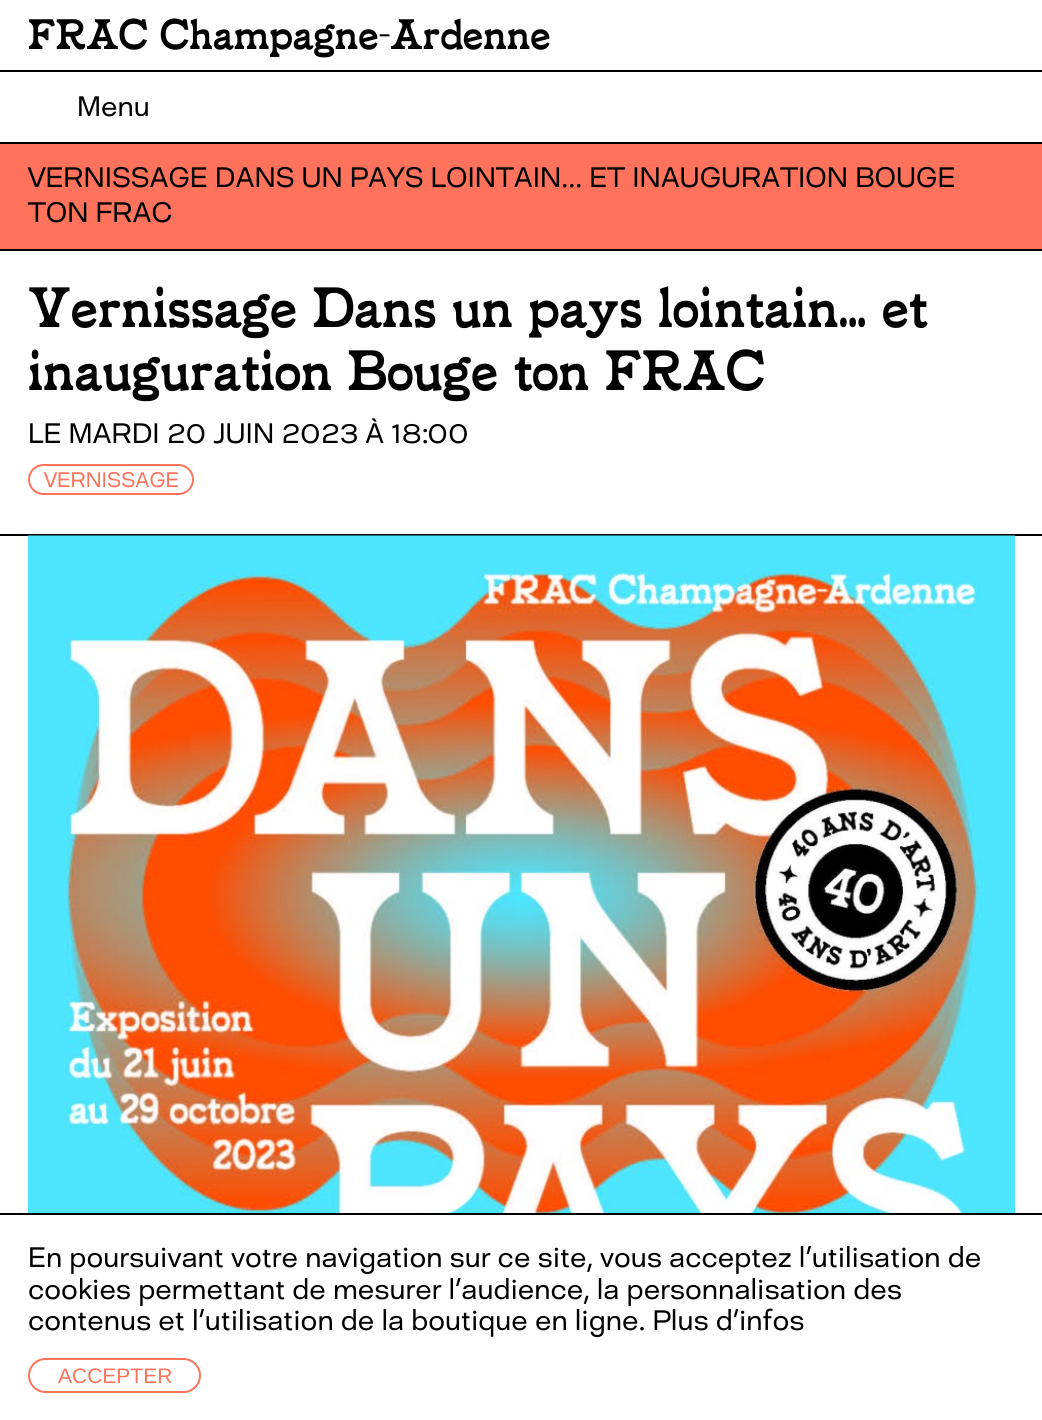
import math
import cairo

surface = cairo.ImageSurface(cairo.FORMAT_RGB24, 1042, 1420)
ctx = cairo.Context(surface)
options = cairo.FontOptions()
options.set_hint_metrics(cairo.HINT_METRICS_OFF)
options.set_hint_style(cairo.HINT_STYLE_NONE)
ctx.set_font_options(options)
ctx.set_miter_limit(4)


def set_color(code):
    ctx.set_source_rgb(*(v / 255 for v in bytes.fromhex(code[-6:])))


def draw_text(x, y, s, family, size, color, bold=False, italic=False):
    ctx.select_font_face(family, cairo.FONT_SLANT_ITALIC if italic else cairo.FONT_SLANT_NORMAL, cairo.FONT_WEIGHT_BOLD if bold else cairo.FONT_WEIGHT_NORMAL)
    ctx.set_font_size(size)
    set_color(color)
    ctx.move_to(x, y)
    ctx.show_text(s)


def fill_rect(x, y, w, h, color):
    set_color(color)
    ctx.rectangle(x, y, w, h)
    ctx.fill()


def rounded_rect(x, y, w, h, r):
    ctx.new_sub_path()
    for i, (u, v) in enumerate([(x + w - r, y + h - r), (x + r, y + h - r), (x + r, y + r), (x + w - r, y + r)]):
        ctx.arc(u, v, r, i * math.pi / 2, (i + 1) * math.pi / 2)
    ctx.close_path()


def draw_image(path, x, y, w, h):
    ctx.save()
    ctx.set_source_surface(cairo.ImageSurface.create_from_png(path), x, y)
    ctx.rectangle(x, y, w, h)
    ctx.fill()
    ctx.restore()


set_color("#ffffff")
ctx.paint()
draw_text(28, 49, "FRAC Champagne-Ardenne", "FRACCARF", 42, "#000000")
fill_rect(0, 70, 1042, 2, "#000000")
fill_rect(0, 142, 1042, 2, "#000000")
draw_text(77, 116, "Menu", "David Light", 28, "#000000")
fill_rect(0, 144, 1042, 105, "#ff735c")
fill_rect(0, 249, 1042, 2, "#000000")
draw_text(28, 187, "VERNISSAGE DANS UN PAYS LOINTAIN... ET INAUGURATION BOUGE", "David Light", 28, "#000000")
draw_text(28, 222, "TON FRAC", "David Light", 28, "#000000")
fill_rect(0, 534, 1042, 2, "#000000")
draw_text(28, 327, "Vernissage Dans un pays lointain... et", "FRACCARF", 56, "#000000")
draw_text(28, 390, "inauguration Bouge ton FRAC", "FRACCARF", 56, "#000000")
draw_text(28, 443, "LE MARDI 20 JUIN 2023 À 18:00", "David Light", 28, "#000000")
rounded_rect(29, 465, 164, 29, 14.5)
set_color("#ff735c")
ctx.stroke()
draw_text(44, 487, "VERNISSAGE", "David Light", 21, "#ff735c")
draw_image("assets/img1.png", 28, 535, 987, 678)
fill_rect(0, 1213, 1042, 2, "#000000")
draw_text(28, 1267, "En poursuivant votre navigation sur ce site, vous acceptez l’utilisation de", "David Light", 28, "#000000")
draw_text(28, 1299, "cookies permettant de mesurer l’audience, la personnalisation des", "David Light", 28, "#000000")
draw_text(28, 1330, "contenus et l’utilisation de la boutique en ligne. Plus d’infos", "David Light", 28, "#000000")
rounded_rect(29, 1359, 171, 33, 16.5)
set_color("#ff735c")
ctx.stroke()
draw_text(58, 1383, "ACCEPTER", "Liberation Sans", 21, "#ff735c")
surface.write_to_png("output.png")
